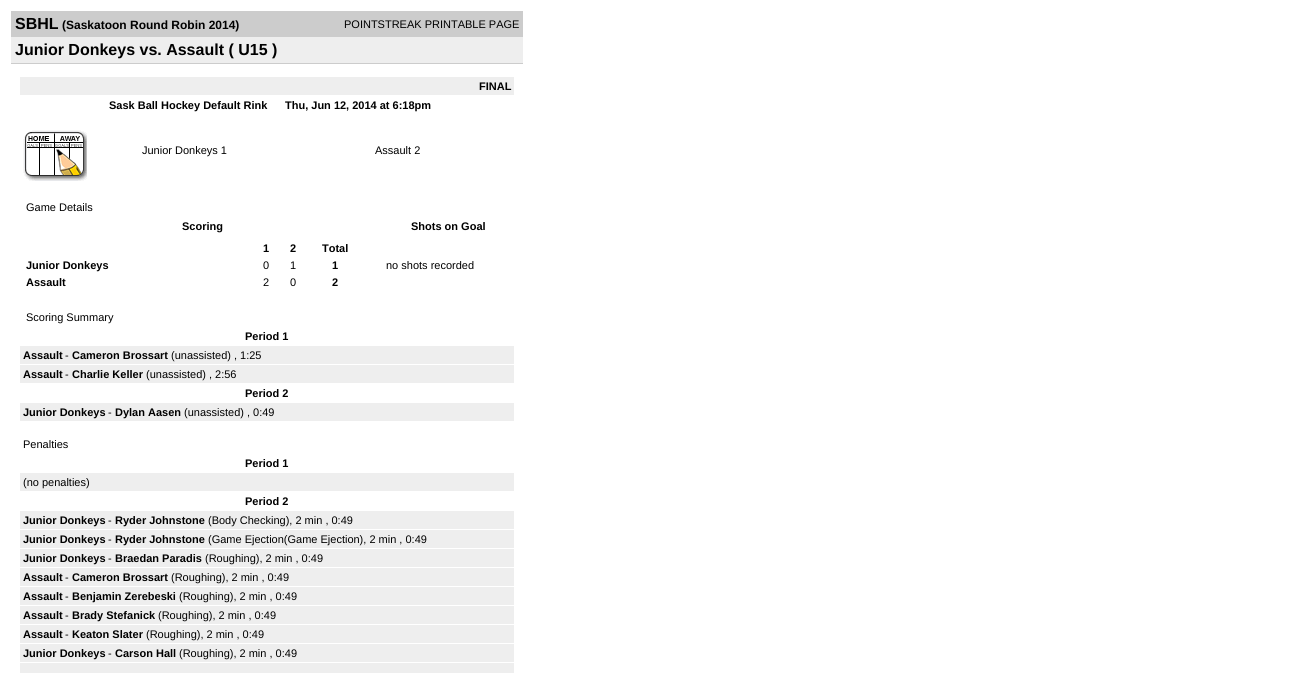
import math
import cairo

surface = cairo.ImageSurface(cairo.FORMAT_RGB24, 1307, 673)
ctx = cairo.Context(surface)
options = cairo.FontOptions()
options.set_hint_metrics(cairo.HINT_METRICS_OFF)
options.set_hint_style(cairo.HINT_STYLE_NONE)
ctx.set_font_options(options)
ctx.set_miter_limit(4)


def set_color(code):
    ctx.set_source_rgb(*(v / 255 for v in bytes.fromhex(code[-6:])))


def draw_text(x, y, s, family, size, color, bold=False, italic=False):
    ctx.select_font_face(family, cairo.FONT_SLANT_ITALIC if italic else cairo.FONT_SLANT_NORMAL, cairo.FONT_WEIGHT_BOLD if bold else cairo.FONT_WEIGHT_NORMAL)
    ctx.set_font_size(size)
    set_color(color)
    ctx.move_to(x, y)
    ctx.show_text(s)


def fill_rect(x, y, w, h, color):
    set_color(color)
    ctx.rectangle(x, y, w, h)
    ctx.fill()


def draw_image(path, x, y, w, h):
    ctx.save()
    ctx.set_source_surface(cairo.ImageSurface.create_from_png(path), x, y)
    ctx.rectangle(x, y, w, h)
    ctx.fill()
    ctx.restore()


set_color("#ffffff")
ctx.paint()
fill_rect(11, 11, 512, 26, "#cccccc")
draw_text(15, 29, "SBHL", "Liberation Sans", 16, "#000000", bold=True)
draw_text(62, 29, "(Saskatoon Round Robin 2014)", "Liberation Sans", 12, "#000000", bold=True)
draw_text(344, 28, "POINTSTREAK PRINTABLE PAGE", "Liberation Sans", 11, "#000000")
fill_rect(11, 37, 512, 26, "#eeeeee")
draw_text(15, 55, "Junior Donkeys vs. Assault ( U15 )", "Liberation Sans", 16, "#000000", bold=True)
fill_rect(11, 63, 512, 1, "#cccccc")
fill_rect(20, 77, 494, 18, "#eeeeee")
draw_text(479, 90, "FINAL", "Liberation Sans", 11, "#000000", bold=True)
draw_text(109, 109, "Sask Ball Hockey Default Rink", "Liberation Sans", 11, "#000000", bold=True)
draw_text(285, 109, "Thu, Jun 12, 2014 at 6:18pm", "Liberation Sans", 11, "#000000", bold=True)
draw_image("assets/img1.png", 23, 130, 64, 51)
draw_text(142, 154, "Junior Donkeys 1", "Liberation Sans", 11, "#000000")
draw_text(375, 154, "Assault 2", "Liberation Sans", 11, "#000000")
draw_text(26, 211, "Game Details", "Liberation Sans", 11, "#000000")
draw_text(182, 230, "Scoring", "Liberation Sans", 11, "#000000", bold=True)
draw_text(411, 230, "Shots on Goal", "Liberation Sans", 11, "#000000", bold=True)
draw_text(263, 252, "1", "Liberation Sans", 11, "#000000", bold=True)
draw_text(290, 252, "2", "Liberation Sans", 11, "#000000", bold=True)
draw_text(322, 252, "Total", "Liberation Sans", 11, "#000000", bold=True)
draw_text(26, 269, "Junior Donkeys", "Liberation Sans", 11, "#000000", bold=True)
draw_text(263, 269, "0", "Liberation Sans", 11, "#000000")
draw_text(290, 269, "1", "Liberation Sans", 11, "#000000")
draw_text(332, 269, "1", "Liberation Sans", 11, "#000000", bold=True)
draw_text(26, 286, "Assault", "Liberation Sans", 11, "#000000", bold=True)
draw_text(263, 286, "2", "Liberation Sans", 11, "#000000")
draw_text(290, 286, "0", "Liberation Sans", 11, "#000000")
draw_text(332, 286, "2", "Liberation Sans", 11, "#000000", bold=True)
draw_text(386, 269, "no shots recorded", "Liberation Sans", 11, "#000000")
draw_text(26, 321, "Scoring Summary", "Liberation Sans", 11, "#000000")
draw_text(245, 340, "Period 1", "Liberation Sans", 11, "#000000", bold=True)
fill_rect(20, 346, 494, 18, "#eeeeee")
draw_text(23, 359, "Assault", "Liberation Sans", 11, "#000000", bold=True)
draw_text(65, 359, "-", "Liberation Sans", 11, "#000000")
draw_text(72, 359, "Cameron Brossart", "Liberation Sans", 11, "#000000", bold=True)
draw_text(171, 359, "(unassisted) , 1:25", "Liberation Sans", 11, "#000000")
fill_rect(20, 365, 494, 18, "#eeeeee")
draw_text(23, 378, "Assault", "Liberation Sans", 11, "#000000", bold=True)
draw_text(65, 378, "-", "Liberation Sans", 11, "#000000")
draw_text(72, 378, "Charlie Keller", "Liberation Sans", 11, "#000000", bold=True)
draw_text(146, 378, "(unassisted) , 2:56", "Liberation Sans", 11, "#000000")
draw_text(245, 397, "Period 2", "Liberation Sans", 11, "#000000", bold=True)
fill_rect(20, 403, 494, 18, "#eeeeee")
draw_text(23, 416, "Junior Donkeys", "Liberation Sans", 11, "#000000", bold=True)
draw_text(108, 416, "-", "Liberation Sans", 11, "#000000")
draw_text(115, 416, "Dylan Aasen", "Liberation Sans", 11, "#000000", bold=True)
draw_text(184, 416, "(unassisted) , 0:49", "Liberation Sans", 11, "#000000")
draw_text(23, 448, "Penalties", "Liberation Sans", 11, "#000000")
draw_text(245, 467, "Period 1", "Liberation Sans", 11, "#000000", bold=True)
fill_rect(20, 473, 494, 18, "#eeeeee")
draw_text(23, 486, "(no penalties)", "Liberation Sans", 11, "#000000")
draw_text(245, 505, "Period 2", "Liberation Sans", 11, "#000000", bold=True)
fill_rect(20, 511, 494, 18, "#eeeeee")
draw_text(23, 524, "Junior Donkeys", "Liberation Sans", 11, "#000000", bold=True)
draw_text(108, 524, "-", "Liberation Sans", 11, "#000000")
draw_text(115, 524, "Ryder Johnstone", "Liberation Sans", 11, "#000000", bold=True)
draw_text(208, 524, "(Body Checking), 2 min , 0:49", "Liberation Sans", 11, "#000000")
fill_rect(20, 530, 494, 18, "#eeeeee")
draw_text(23, 543, "Junior Donkeys", "Liberation Sans", 11, "#000000", bold=True)
draw_text(108, 543, "-", "Liberation Sans", 11, "#000000")
draw_text(115, 543, "Ryder Johnstone", "Liberation Sans", 11, "#000000", bold=True)
draw_text(208, 543, "(Game Ejection(Game Ejection), 2 min , 0:49", "Liberation Sans", 11, "#000000")
fill_rect(20, 549, 494, 18, "#eeeeee")
draw_text(23, 562, "Junior Donkeys", "Liberation Sans", 11, "#000000", bold=True)
draw_text(108, 562, "-", "Liberation Sans", 11, "#000000")
draw_text(115, 562, "Braedan Paradis", "Liberation Sans", 11, "#000000", bold=True)
draw_text(205, 562, "(Roughing), 2 min , 0:49", "Liberation Sans", 11, "#000000")
fill_rect(20, 568, 494, 18, "#eeeeee")
draw_text(23, 581, "Assault", "Liberation Sans", 11, "#000000", bold=True)
draw_text(65, 581, "-", "Liberation Sans", 11, "#000000")
draw_text(72, 581, "Cameron Brossart", "Liberation Sans", 11, "#000000", bold=True)
draw_text(171, 581, "(Roughing), 2 min , 0:49", "Liberation Sans", 11, "#000000")
fill_rect(20, 587, 494, 18, "#eeeeee")
draw_text(23, 600, "Assault", "Liberation Sans", 11, "#000000", bold=True)
draw_text(65, 600, "-", "Liberation Sans", 11, "#000000")
draw_text(72, 600, "Benjamin Zerebeski", "Liberation Sans", 11, "#000000", bold=True)
draw_text(179, 600, "(Roughing), 2 min , 0:49", "Liberation Sans", 11, "#000000")
fill_rect(20, 606, 494, 18, "#eeeeee")
draw_text(23, 619, "Assault", "Liberation Sans", 11, "#000000", bold=True)
draw_text(65, 619, "-", "Liberation Sans", 11, "#000000")
draw_text(72, 619, "Brady Stefanick", "Liberation Sans", 11, "#000000", bold=True)
draw_text(158, 619, "(Roughing), 2 min , 0:49", "Liberation Sans", 11, "#000000")
fill_rect(20, 625, 494, 18, "#eeeeee")
draw_text(23, 638, "Assault", "Liberation Sans", 11, "#000000", bold=True)
draw_text(65, 638, "-", "Liberation Sans", 11, "#000000")
draw_text(72, 638, "Keaton Slater", "Liberation Sans", 11, "#000000", bold=True)
draw_text(146, 638, "(Roughing), 2 min , 0:49", "Liberation Sans", 11, "#000000")
fill_rect(20, 644, 494, 18, "#eeeeee")
draw_text(23, 657, "Junior Donkeys", "Liberation Sans", 11, "#000000", bold=True)
draw_text(108, 657, "-", "Liberation Sans", 11, "#000000")
draw_text(115, 657, "Carson Hall", "Liberation Sans", 11, "#000000", bold=True)
draw_text(179, 657, "(Roughing), 2 min , 0:49", "Liberation Sans", 11, "#000000")
fill_rect(20, 663, 494, 10, "#eeeeee")
surface.write_to_png("output.png")
